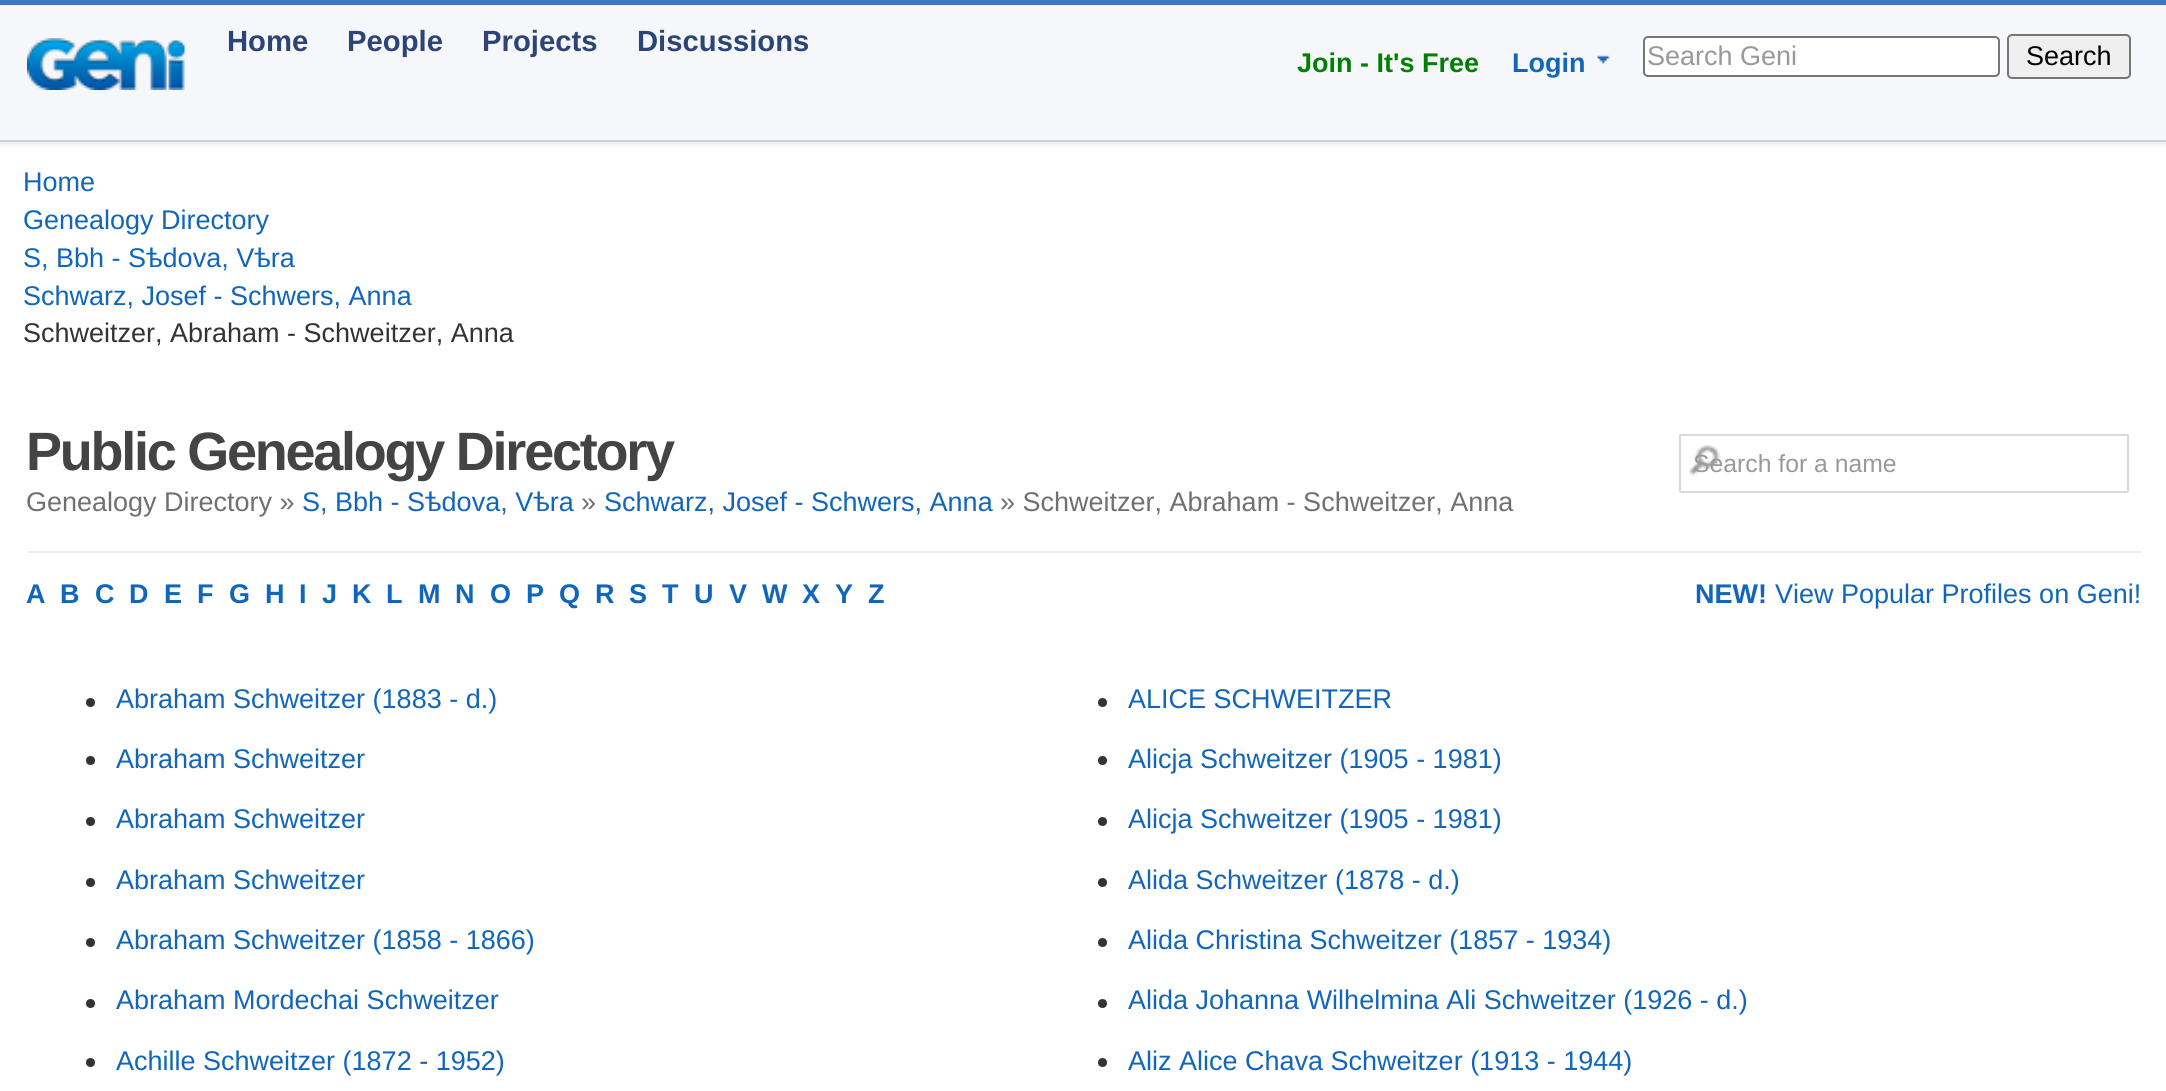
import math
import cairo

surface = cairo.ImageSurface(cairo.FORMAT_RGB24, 2166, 1091)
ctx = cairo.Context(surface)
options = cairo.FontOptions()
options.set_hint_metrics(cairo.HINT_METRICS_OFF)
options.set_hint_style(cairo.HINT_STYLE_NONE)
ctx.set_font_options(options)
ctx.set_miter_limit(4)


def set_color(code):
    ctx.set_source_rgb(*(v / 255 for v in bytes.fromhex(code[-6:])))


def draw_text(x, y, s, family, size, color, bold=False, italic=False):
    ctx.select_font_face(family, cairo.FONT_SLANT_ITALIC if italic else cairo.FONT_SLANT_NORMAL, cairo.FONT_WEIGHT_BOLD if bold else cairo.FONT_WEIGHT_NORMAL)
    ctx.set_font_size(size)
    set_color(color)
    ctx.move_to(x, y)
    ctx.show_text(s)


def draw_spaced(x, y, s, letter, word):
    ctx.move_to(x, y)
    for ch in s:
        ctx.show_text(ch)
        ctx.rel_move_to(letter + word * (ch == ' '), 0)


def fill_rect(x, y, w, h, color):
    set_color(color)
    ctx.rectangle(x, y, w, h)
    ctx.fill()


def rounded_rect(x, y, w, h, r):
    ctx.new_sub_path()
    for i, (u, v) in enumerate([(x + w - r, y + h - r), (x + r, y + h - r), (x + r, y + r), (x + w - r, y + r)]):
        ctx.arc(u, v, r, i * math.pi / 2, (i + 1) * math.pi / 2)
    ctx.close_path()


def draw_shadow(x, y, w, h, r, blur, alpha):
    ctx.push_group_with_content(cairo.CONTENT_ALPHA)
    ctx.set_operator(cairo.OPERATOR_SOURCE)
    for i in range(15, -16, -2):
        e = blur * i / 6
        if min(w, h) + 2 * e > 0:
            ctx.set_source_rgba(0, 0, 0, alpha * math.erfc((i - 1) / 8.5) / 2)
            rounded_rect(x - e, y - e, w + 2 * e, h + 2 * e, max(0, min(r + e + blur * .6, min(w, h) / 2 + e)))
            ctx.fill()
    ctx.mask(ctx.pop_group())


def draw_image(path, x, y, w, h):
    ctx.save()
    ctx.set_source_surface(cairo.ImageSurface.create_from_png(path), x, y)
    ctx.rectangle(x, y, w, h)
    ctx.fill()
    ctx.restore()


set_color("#ffffff")
ctx.paint()
set_color("#000000")
draw_shadow(0, 2, 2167, 142, 0, 3.5, 0.1)
fill_rect(0, 5, 2166, 135, "#f6f7fa")
fill_rect(0, 0, 2166, 5, "#3d76bb")
fill_rect(0, 140, 2166, 2, "#cad3dd")
draw_image("assets/img1.png", 27, 38, 158, 52)
draw_text(227, 51, "Home", "Liberation Sans", 29.25, "#2d4576", bold=True)
draw_text(347, 51, "People", "Liberation Sans", 29.25, "#2d4576", bold=True)
draw_text(482, 51, "Projects", "Liberation Sans", 29.25, "#2d4576", bold=True)
draw_text(637, 51, "Discussions", "Liberation Sans", 29.25, "#2d4576", bold=True)
draw_text(1297, 72, "Join - It's Free", "Liberation Sans", 27, "#008000", bold=True)
draw_text(1512, 72, "Login", "Liberation Sans", 27, "#1166bb", bold=True)
draw_image("assets/img2.png", 1597, 55, 13, 9)
set_color("#ffffff")
rounded_rect(1644, 37, 355, 39, 4)
ctx.fill_preserve()
set_color("#767676")
ctx.stroke()
draw_text(1647, 65, "Search Geni", "Liberation Sans", 27, "#999999")
set_color("#efefef")
rounded_rect(2008, 35, 122, 43, 4)
ctx.fill_preserve()
set_color("#767676")
ctx.stroke()
draw_text(2026, 65, "Search", "Liberation Sans", 27, "#000000")
draw_text(23, 191, "Home", "Liberation Sans", 27, "#1166bb")
draw_text(23, 229, "Genealogy Directory", "Liberation Sans", 27, "#1166bb")
draw_text(23, 267, "S, Bbh - Sѣdova, Vѣra", "Liberation Sans", 27, "#1166bb")
draw_text(23, 305, "Schwarz, Josef - Schwers, Anna", "Liberation Sans", 27, "#1166bb")
draw_text(23, 342, "Schweitzer, Abraham - Schweitzer, Anna", "Liberation Sans", 27, "#333333")
fill_rect(27, 551, 2115, 2, "#eeeeee")
ctx.select_font_face("Liberation Sans", cairo.FONT_SLANT_NORMAL, cairo.FONT_WEIGHT_BOLD)
ctx.set_font_size(54)
set_color("#444444")
draw_spaced(26, 470, "Public Genealogy Directory", -2.25, 0)
draw_image("assets/img3.png", 1688, 445, 32, 31)
rounded_rect(1680, 435, 448, 57, 1)
set_color("#dadada")
ctx.stroke()
draw_text(1693, 472, "Search for a name", "Liberation Sans", 24.75, "#999999")
draw_text(26, 511, "Genealogy Directory »", "Liberation Sans", 27, "#707070")
draw_text(302, 511, "S, Bbh - Sѣdova, Vѣra", "Liberation Sans", 27, "#1166bb")
draw_text(581, 511, "»", "Liberation Sans", 27, "#707070")
draw_text(604, 511, "Schwarz, Josef - Schwers, Anna", "Liberation Sans", 27, "#1166bb")
draw_text(1000, 511, "» Schweitzer, Abraham - Schweitzer, Anna", "Liberation Sans", 27, "#707070")
draw_text(26, 603, "A", "Liberation Sans", 27, "#1166bb", bold=True)
draw_text(60, 603, "B", "Liberation Sans", 27, "#1166bb", bold=True)
draw_text(95, 603, "C", "Liberation Sans", 27, "#1166bb", bold=True)
draw_text(129, 603, "D", "Liberation Sans", 27, "#1166bb", bold=True)
draw_text(164, 603, "E", "Liberation Sans", 27, "#1166bb", bold=True)
draw_text(197, 603, "F", "Liberation Sans", 27, "#1166bb", bold=True)
draw_text(229, 603, "G", "Liberation Sans", 27, "#1166bb", bold=True)
draw_text(265, 603, "H", "Liberation Sans", 27, "#1166bb", bold=True)
draw_text(299, 603, "I", "Liberation Sans", 27, "#1166bb", bold=True)
draw_text(322, 603, "J", "Liberation Sans", 27, "#1166bb", bold=True)
draw_text(352, 603, "K", "Liberation Sans", 27, "#1166bb", bold=True)
draw_text(386, 603, "L", "Liberation Sans", 27, "#1166bb", bold=True)
draw_text(418, 603, "M", "Liberation Sans", 27, "#1166bb", bold=True)
draw_text(455, 603, "N", "Liberation Sans", 27, "#1166bb", bold=True)
draw_text(490, 603, "O", "Liberation Sans", 27, "#1166bb", bold=True)
draw_text(526, 603, "P", "Liberation Sans", 27, "#1166bb", bold=True)
draw_text(559, 603, "Q", "Liberation Sans", 27, "#1166bb", bold=True)
draw_text(595, 603, "R", "Liberation Sans", 27, "#1166bb", bold=True)
draw_text(629, 603, "S", "Liberation Sans", 27, "#1166bb", bold=True)
draw_text(662, 603, "T", "Liberation Sans", 27, "#1166bb", bold=True)
draw_text(694, 603, "U", "Liberation Sans", 27, "#1166bb", bold=True)
draw_text(729, 603, "V", "Liberation Sans", 27, "#1166bb", bold=True)
draw_text(762, 603, "W", "Liberation Sans", 27, "#1166bb", bold=True)
draw_text(802, 603, "X", "Liberation Sans", 27, "#1166bb", bold=True)
draw_text(835, 603, "Y", "Liberation Sans", 27, "#1166bb", bold=True)
draw_text(868, 603, "Z", "Liberation Sans", 27, "#1166bb", bold=True)
draw_text(1695, 603, "NEW!", "Liberation Sans", 27, "#1166bb", bold=True)
draw_text(1775, 603, "View Popular Profiles on Geni!", "Liberation Sans", 27, "#1166bb")
set_color("#333333")
ctx.new_path()
ctx.arc(90.5, 702.5, 4.5, 0, 2 * math.pi)
ctx.fill()
draw_text(116, 708, "Abraham Schweitzer (1883 - d.)", "Liberation Sans", 27, "#1166bb")
set_color("#333333")
ctx.new_path()
ctx.arc(90.5, 760.5, 4.5, 0, 2 * math.pi)
ctx.fill()
draw_text(116, 768, "Abraham Schweitzer", "Liberation Sans", 27, "#1166bb")
set_color("#333333")
ctx.new_path()
ctx.arc(90.5, 821.5, 4.5, 0, 2 * math.pi)
ctx.fill()
draw_text(116, 828, "Abraham Schweitzer", "Liberation Sans", 27, "#1166bb")
set_color("#333333")
ctx.new_path()
ctx.arc(90.5, 882.5, 4.5, 0, 2 * math.pi)
ctx.fill()
draw_text(116, 889, "Abraham Schweitzer", "Liberation Sans", 27, "#1166bb")
set_color("#333333")
ctx.new_path()
ctx.arc(90.5, 942.5, 4.5, 0, 2 * math.pi)
ctx.fill()
draw_text(116, 949, "Abraham Schweitzer (1858 - 1866)", "Liberation Sans", 27, "#1166bb")
set_color("#333333")
ctx.new_path()
ctx.arc(90.5, 1003.5, 4.5, 0, 2 * math.pi)
ctx.fill()
draw_text(116, 1009, "Abraham Mordechai Schweitzer", "Liberation Sans", 27, "#1166bb")
set_color("#333333")
ctx.new_path()
ctx.arc(90.5, 1062.5, 4.5, 0, 2 * math.pi)
ctx.fill()
draw_text(116, 1070, "Achille Schweitzer (1872 - 1952)", "Liberation Sans", 27, "#1166bb")
set_color("#333333")
ctx.new_path()
ctx.arc(1102.5, 702.5, 4.5, 0, 2 * math.pi)
ctx.fill()
draw_text(1128, 708, "ALICE SCHWEITZER", "Liberation Sans", 27, "#1166bb")
set_color("#333333")
ctx.new_path()
ctx.arc(1102.5, 760.5, 4.5, 0, 2 * math.pi)
ctx.fill()
draw_text(1128, 768, "Alicja Schweitzer (1905 - 1981)", "Liberation Sans", 27, "#1166bb")
set_color("#333333")
ctx.new_path()
ctx.arc(1102.5, 821.5, 4.5, 0, 2 * math.pi)
ctx.fill()
draw_text(1128, 828, "Alicja Schweitzer (1905 - 1981)", "Liberation Sans", 27, "#1166bb")
set_color("#333333")
ctx.new_path()
ctx.arc(1102.5, 882.5, 4.5, 0, 2 * math.pi)
ctx.fill()
draw_text(1128, 889, "Alida Schweitzer (1878 - d.)", "Liberation Sans", 27, "#1166bb")
set_color("#333333")
ctx.new_path()
ctx.arc(1102.5, 942.5, 4.5, 0, 2 * math.pi)
ctx.fill()
draw_text(1128, 949, "Alida Christina Schweitzer (1857 - 1934)", "Liberation Sans", 27, "#1166bb")
set_color("#333333")
ctx.new_path()
ctx.arc(1102.5, 1003.5, 4.5, 0, 2 * math.pi)
ctx.fill()
draw_text(1128, 1009, "Alida Johanna Wilhelmina Ali Schweitzer (1926 - d.)", "Liberation Sans", 27, "#1166bb")
set_color("#333333")
ctx.new_path()
ctx.arc(1102.5, 1062.5, 4.5, 0, 2 * math.pi)
ctx.fill()
draw_text(1128, 1070, "Aliz Alice Chava Schweitzer (1913 - 1944)", "Liberation Sans", 27, "#1166bb")
surface.write_to_png("output.png")
